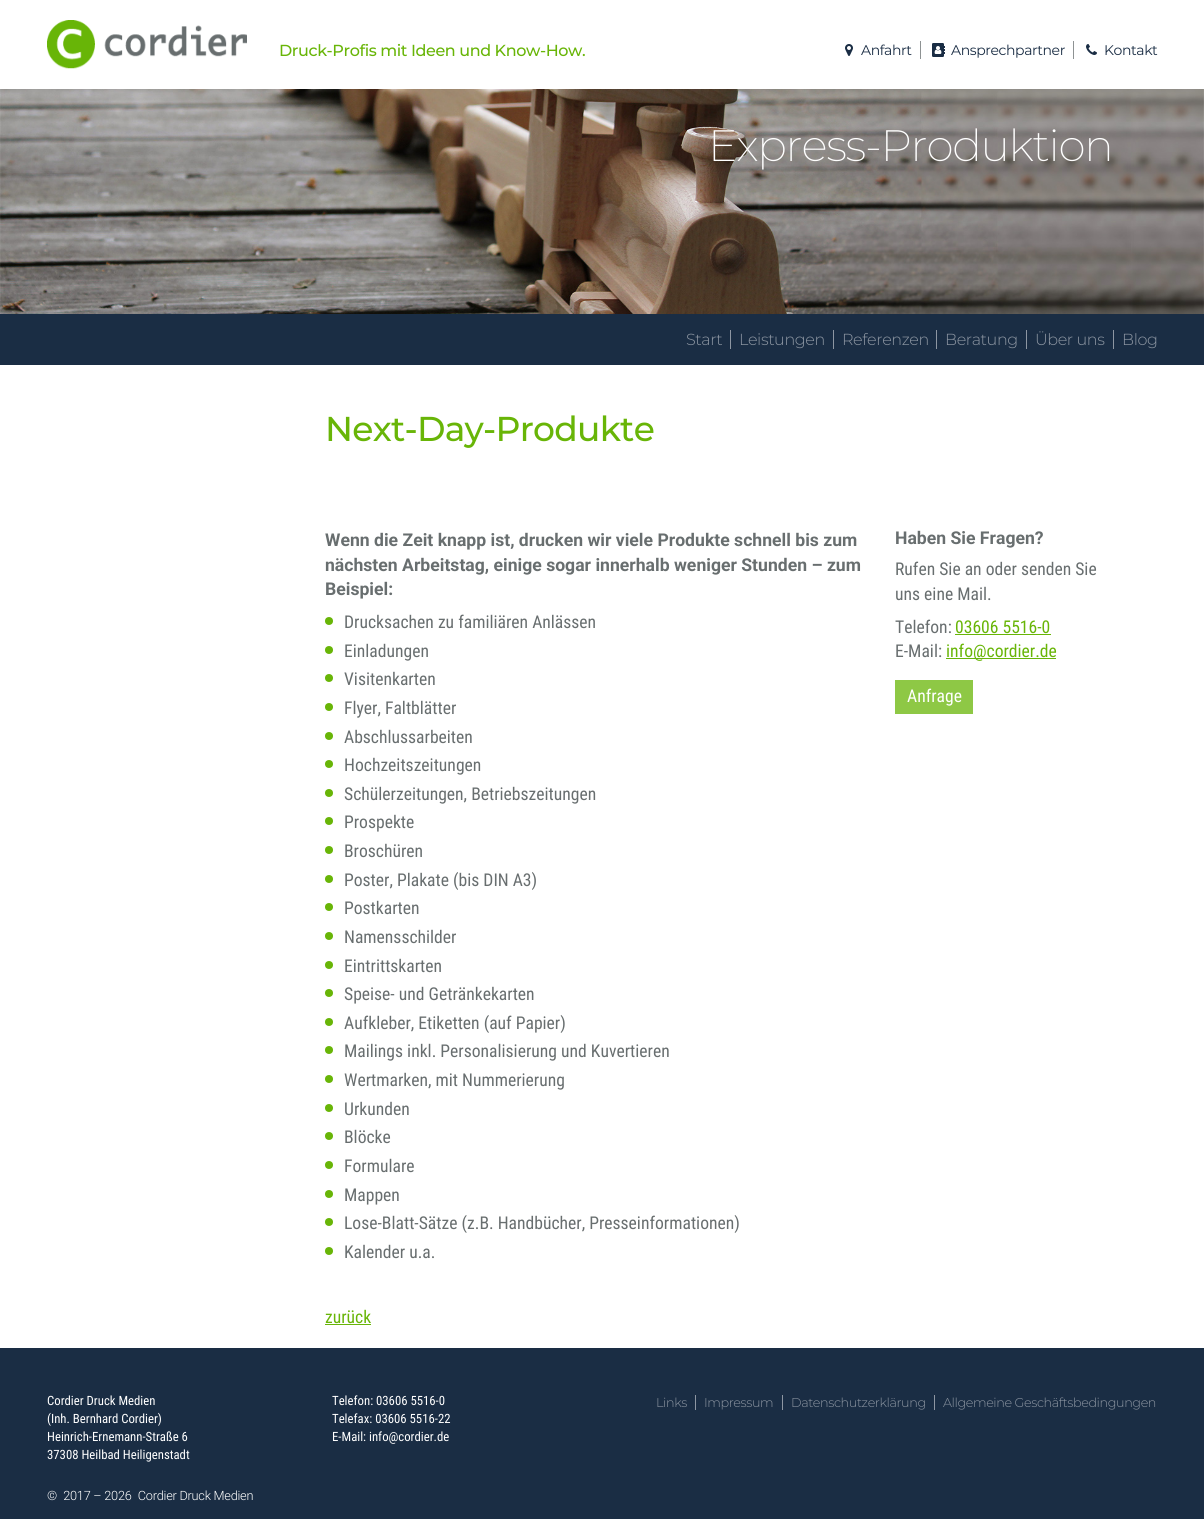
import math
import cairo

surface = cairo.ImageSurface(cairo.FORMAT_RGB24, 1204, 1519)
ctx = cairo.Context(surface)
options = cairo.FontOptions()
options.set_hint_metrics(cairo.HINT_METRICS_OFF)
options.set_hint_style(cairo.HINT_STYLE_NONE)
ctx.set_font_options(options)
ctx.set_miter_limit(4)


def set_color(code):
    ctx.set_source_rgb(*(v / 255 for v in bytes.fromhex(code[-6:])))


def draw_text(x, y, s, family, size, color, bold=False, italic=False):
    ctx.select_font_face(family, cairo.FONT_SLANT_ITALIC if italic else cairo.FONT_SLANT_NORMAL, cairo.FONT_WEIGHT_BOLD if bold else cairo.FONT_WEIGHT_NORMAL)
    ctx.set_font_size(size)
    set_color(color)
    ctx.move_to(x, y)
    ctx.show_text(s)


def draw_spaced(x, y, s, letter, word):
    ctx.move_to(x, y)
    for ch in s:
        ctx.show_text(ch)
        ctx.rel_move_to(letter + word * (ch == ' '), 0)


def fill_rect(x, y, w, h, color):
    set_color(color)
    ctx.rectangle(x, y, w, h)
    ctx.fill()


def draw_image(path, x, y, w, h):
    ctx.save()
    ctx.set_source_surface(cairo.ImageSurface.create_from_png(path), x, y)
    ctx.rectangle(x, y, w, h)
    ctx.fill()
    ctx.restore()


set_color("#ffffff")
ctx.paint()
draw_image("assets/img1.png", 47, 20, 200, 49)
ctx.select_font_face("Montserrat Medium")
ctx.set_font_size(16)
set_color("#68b507")
draw_spaced(279, 56, "Druck-Profis mit Ideen und Know-How.", -0.4, 0)
fill_rect(920, 41, 1, 18, "#8e9293")
draw_image("assets/img2.png", 845, 44, 8, 12)
ctx.select_font_face("Montserrat")
ctx.set_font_size(14)
set_color("#1a2d44")
draw_spaced(861, 55, "Anfahrt", -0.4, 0)
fill_rect(1073, 41, 1, 18, "#8e9293")
draw_image("assets/img3.png", 932, 43, 13, 14)
set_color("#1a2d44")
draw_spaced(951, 55, "Ansprechpartner", -0.4, 0)
draw_image("assets/img4.png", 1086, 44, 11, 11)
draw_spaced(1104, 55, "Kontakt", -0.4, 0)
draw_image("assets/img5.png", 0, 89, 1204, 225)
ctx.select_font_face("Montserrat ExtraLight")
ctx.set_font_size(44)
set_color("#ffffff")
draw_spaced(708, 161, "Express-Produktion", -1.25, 0)
fill_rect(0, 314, 1204, 51, "#1a2d44")
ctx.select_font_face("Montserrat Light")
ctx.set_font_size(16)
set_color("#8d96a2")
draw_spaced(686, 345, "Start", -0.4, 0)
draw_spaced(739, 345, "Leistungen", -0.4, 0)
fill_rect(730, 330, 1, 19, "#8d96a2")
draw_spaced(842, 345, "Referenzen", -0.4, 0)
fill_rect(833, 330, 1, 19, "#8d96a2")
draw_spaced(945, 345, "Beratung", -0.4, 0)
fill_rect(936, 330, 1, 19, "#8d96a2")
draw_spaced(1035, 345, "Über uns", -0.4, 0)
fill_rect(1026, 330, 1, 19, "#8d96a2")
draw_spaced(1122, 345, "Blog", -0.4, 0)
fill_rect(1113, 330, 1, 19, "#8d96a2")
ctx.select_font_face("Montserrat Medium")
ctx.set_font_size(34.5)
set_color("#68b507")
draw_spaced(325, 441, "Next-Day-Produkte", -0.75, 0)
draw_text(325, 546, "Wenn die Zeit knapp ist, drucken wir viele Produkte schnell bis zum", "Roboto", 17.6, "#686e6f", bold=True)
draw_text(325, 571, "nächsten Arbeitstag, einige sogar innerhalb weniger Stunden – zum", "Roboto", 17.6, "#686e6f", bold=True)
draw_text(325, 595, "Beispiel:", "Roboto", 17.6, "#686e6f", bold=True)
set_color("#68b507")
ctx.new_path()
ctx.arc(329, 621, 4, 0, 2 * math.pi)
ctx.fill()
draw_text(344, 628, "Drucksachen zu familiären Anlässen", "Roboto Condensed", 17.6, "#686e6f")
set_color("#68b507")
ctx.new_path()
ctx.arc(329, 650, 4, 0, 2 * math.pi)
ctx.fill()
draw_text(344, 657, "Einladungen", "Roboto Condensed", 17.6, "#686e6f")
set_color("#68b507")
ctx.new_path()
ctx.arc(329, 678, 4, 0, 2 * math.pi)
ctx.fill()
draw_text(344, 685, "Visitenkarten", "Roboto Condensed", 17.6, "#686e6f")
set_color("#68b507")
ctx.new_path()
ctx.arc(329, 707, 4, 0, 2 * math.pi)
ctx.fill()
draw_text(344, 714, "Flyer, Faltblätter", "Roboto Condensed", 17.6, "#686e6f")
set_color("#68b507")
ctx.new_path()
ctx.arc(329, 736, 4, 0, 2 * math.pi)
ctx.fill()
draw_text(344, 743, "Abschlussarbeiten", "Roboto Condensed", 17.6, "#686e6f")
set_color("#68b507")
ctx.new_path()
ctx.arc(329, 764, 4, 0, 2 * math.pi)
ctx.fill()
draw_text(344, 771, "Hochzeitszeitungen", "Roboto Condensed", 17.6, "#686e6f")
set_color("#68b507")
ctx.new_path()
ctx.arc(329, 793, 4, 0, 2 * math.pi)
ctx.fill()
draw_text(344, 800, "Schülerzeitungen, Betriebszeitungen", "Roboto Condensed", 17.6, "#686e6f")
set_color("#68b507")
ctx.new_path()
ctx.arc(329, 821, 4, 0, 2 * math.pi)
ctx.fill()
draw_text(344, 828, "Prospekte", "Roboto Condensed", 17.6, "#686e6f")
set_color("#68b507")
ctx.new_path()
ctx.arc(329, 850, 4, 0, 2 * math.pi)
ctx.fill()
draw_text(344, 857, "Broschüren", "Roboto Condensed", 17.6, "#686e6f")
set_color("#68b507")
ctx.new_path()
ctx.arc(329, 879, 4, 0, 2 * math.pi)
ctx.fill()
draw_text(344, 886, "Poster, Plakate (bis DIN A3)", "Roboto Condensed", 17.6, "#686e6f")
set_color("#68b507")
ctx.new_path()
ctx.arc(329, 907, 4, 0, 2 * math.pi)
ctx.fill()
draw_text(344, 914, "Postkarten", "Roboto Condensed", 17.6, "#686e6f")
set_color("#68b507")
ctx.new_path()
ctx.arc(329, 936, 4, 0, 2 * math.pi)
ctx.fill()
draw_text(344, 943, "Namensschilder", "Roboto Condensed", 17.6, "#686e6f")
set_color("#68b507")
ctx.new_path()
ctx.arc(329, 965, 4, 0, 2 * math.pi)
ctx.fill()
draw_text(344, 972, "Eintrittskarten", "Roboto Condensed", 17.6, "#686e6f")
set_color("#68b507")
ctx.new_path()
ctx.arc(329, 993, 4, 0, 2 * math.pi)
ctx.fill()
draw_text(344, 1000, "Speise- und Getränkekarten", "Roboto Condensed", 17.6, "#686e6f")
set_color("#68b507")
ctx.new_path()
ctx.arc(329, 1022, 4, 0, 2 * math.pi)
ctx.fill()
draw_text(344, 1029, "Aufkleber, Etiketten (auf Papier)", "Roboto Condensed", 17.6, "#686e6f")
set_color("#68b507")
ctx.new_path()
ctx.arc(329, 1050, 4, 0, 2 * math.pi)
ctx.fill()
draw_text(344, 1057, "Mailings inkl. Personalisierung und Kuvertieren", "Roboto Condensed", 17.6, "#686e6f")
set_color("#68b507")
ctx.new_path()
ctx.arc(329, 1079, 4, 0, 2 * math.pi)
ctx.fill()
draw_text(344, 1086, "Wertmarken, mit Nummerierung", "Roboto Condensed", 17.6, "#686e6f")
set_color("#68b507")
ctx.new_path()
ctx.arc(329, 1108, 4, 0, 2 * math.pi)
ctx.fill()
draw_text(344, 1115, "Urkunden", "Roboto Condensed", 17.6, "#686e6f")
set_color("#68b507")
ctx.new_path()
ctx.arc(329, 1136, 4, 0, 2 * math.pi)
ctx.fill()
draw_text(344, 1143, "Blöcke", "Roboto Condensed", 17.6, "#686e6f")
set_color("#68b507")
ctx.new_path()
ctx.arc(329, 1165, 4, 0, 2 * math.pi)
ctx.fill()
draw_text(344, 1172, "Formulare", "Roboto Condensed", 17.6, "#686e6f")
set_color("#68b507")
ctx.new_path()
ctx.arc(329, 1194, 4, 0, 2 * math.pi)
ctx.fill()
draw_text(344, 1201, "Mappen", "Roboto Condensed", 17.6, "#686e6f")
set_color("#68b507")
ctx.new_path()
ctx.arc(329, 1222, 4, 0, 2 * math.pi)
ctx.fill()
draw_text(344, 1229, "Lose-Blatt-Sätze (z.B. Handbücher, Presseinformationen)", "Roboto Condensed", 17.6, "#686e6f")
set_color("#68b507")
ctx.new_path()
ctx.arc(329, 1251, 4, 0, 2 * math.pi)
ctx.fill()
draw_text(344, 1258, "Kalender u.a.", "Roboto Condensed", 17.6, "#686e6f")
draw_text(325, 1323, "zurück", "Roboto Condensed", 17.6, "#68b507")
fill_rect(325, 1324, 46, 1, "#68b507")
draw_text(895, 544, "Haben Sie Fragen?", "Roboto", 17.6, "#686e6f", bold=True)
draw_text(895, 575, "Rufen Sie an oder senden Sie", "Roboto Condensed", 17.6, "#686e6f")
draw_text(895, 600, "uns eine Mail.", "Roboto Condensed", 17.6, "#686e6f")
draw_text(895, 633, "Telefon:", "Roboto Condensed", 17.6, "#686e6f")
draw_text(955, 633, "03606 5516-0", "Roboto Condensed", 17.6, "#68b507")
fill_rect(955, 634, 96, 1, "#68b507")
draw_text(895, 657, "E-Mail:", "Roboto Condensed", 17.6, "#686e6f")
fill_rect(946, 658, 110, 1, "#68b507")
draw_text(946, 657, "info@cordier.de", "Roboto Condensed", 17.6, "#68b507")
fill_rect(895, 680, 78, 34, "#8ec845")
draw_text(907, 702, "Anfrage", "Roboto Condensed", 17.6, "#ffffff")
fill_rect(0, 1348, 1204, 171, "#1a2d44")
draw_text(47, 1405, "Cordier Druck Medien", "Roboto Condensed", 12.75, "#ffffff")
draw_text(47, 1423, "(Inh. Bernhard Cordier)", "Roboto Condensed", 12.75, "#ffffff")
draw_text(47, 1441, "Heinrich-Ernemann-Straße 6", "Roboto Condensed", 12.75, "#ffffff")
draw_text(47, 1459, "37308 Heilbad Heiligenstadt", "Roboto Condensed", 12.75, "#ffffff")
draw_text(332, 1405, "Telefon: 03606 5516-0", "Roboto Condensed", 12.75, "#ffffff")
draw_text(332, 1423, "Telefax: 03606 5516-22", "Roboto Condensed", 12.75, "#ffffff")
draw_text(332, 1441, "E-Mail: info@cordier.de", "Roboto Condensed", 12.75, "#ffffff")
ctx.select_font_face("Montserrat Light")
set_color("#8d96a2")
draw_spaced(656, 1407, "Links", -0.4, 0)
fill_rect(695, 1395, 1, 15, "#8d96a2")
draw_spaced(704, 1407, "Impressum", -0.4, 0)
fill_rect(782, 1395, 1, 15, "#8d96a2")
draw_spaced(791, 1407, "Datenschutzerklärung", -0.4, 0)
fill_rect(934, 1395, 1, 15, "#8d96a2")
draw_spaced(943, 1407, "Allgemeine Geschäftsbedingungen", -0.4, 0)
ctx.select_font_face("Roboto Light")
set_color("#ffffff")
draw_spaced(47, 1500, "© 2017 – 2026 Cordier Druck Medien", -0.25, 0)
surface.write_to_png("output.png")
